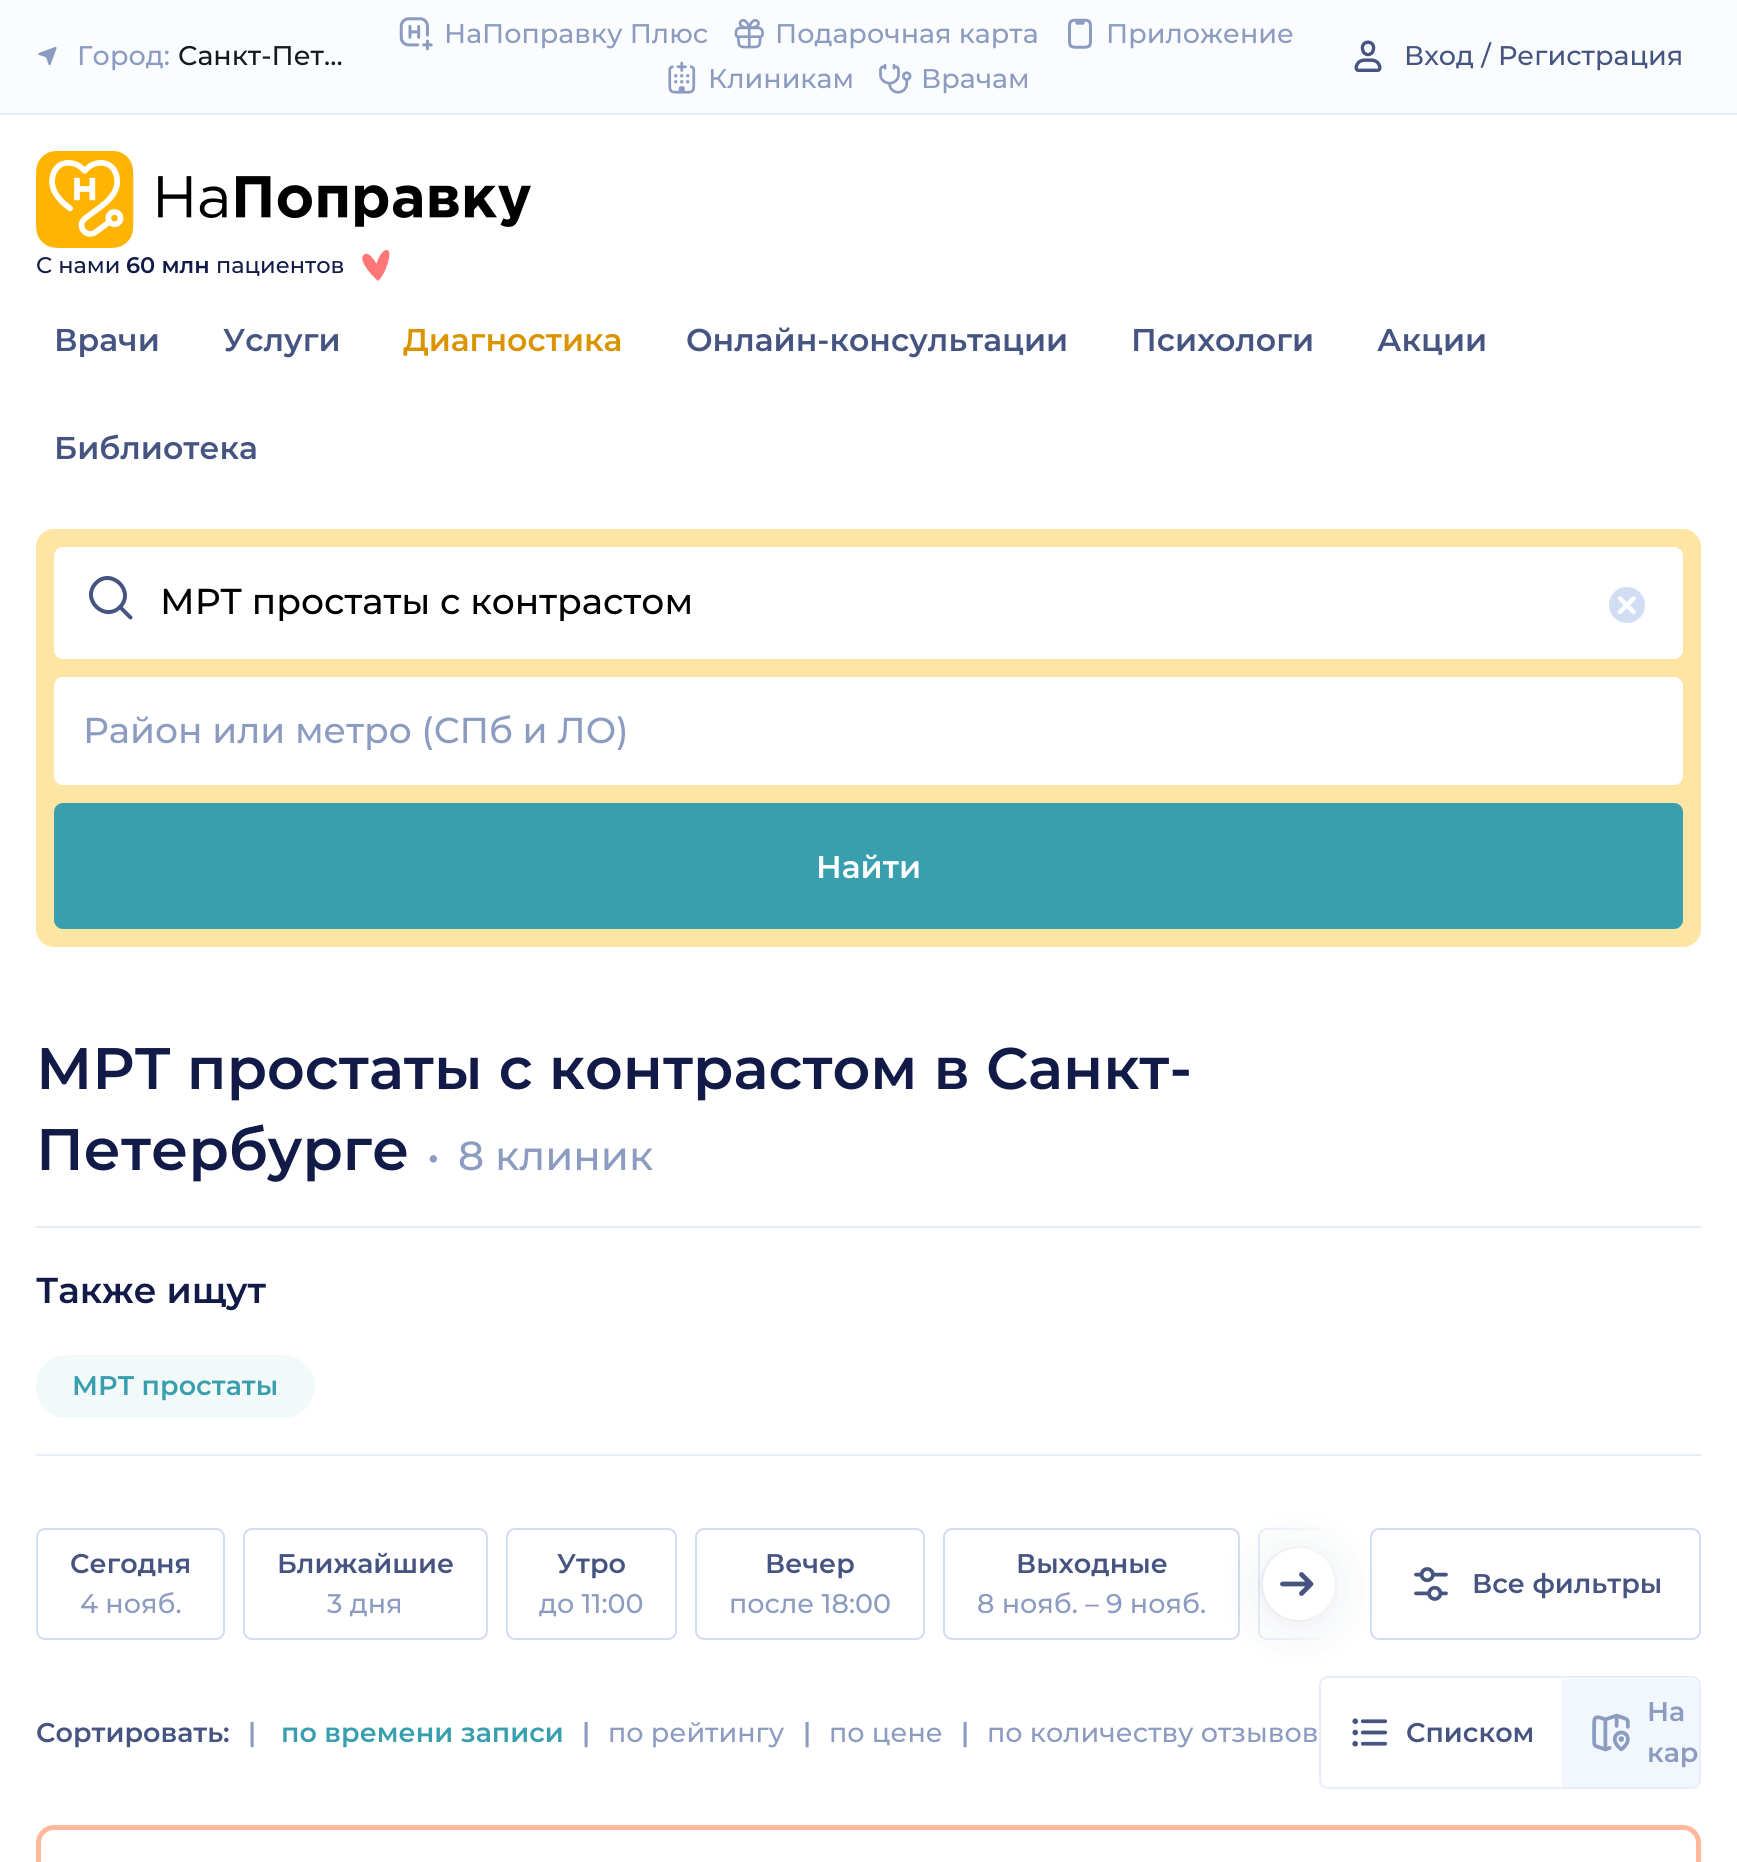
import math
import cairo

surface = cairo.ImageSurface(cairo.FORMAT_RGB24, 1737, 1862)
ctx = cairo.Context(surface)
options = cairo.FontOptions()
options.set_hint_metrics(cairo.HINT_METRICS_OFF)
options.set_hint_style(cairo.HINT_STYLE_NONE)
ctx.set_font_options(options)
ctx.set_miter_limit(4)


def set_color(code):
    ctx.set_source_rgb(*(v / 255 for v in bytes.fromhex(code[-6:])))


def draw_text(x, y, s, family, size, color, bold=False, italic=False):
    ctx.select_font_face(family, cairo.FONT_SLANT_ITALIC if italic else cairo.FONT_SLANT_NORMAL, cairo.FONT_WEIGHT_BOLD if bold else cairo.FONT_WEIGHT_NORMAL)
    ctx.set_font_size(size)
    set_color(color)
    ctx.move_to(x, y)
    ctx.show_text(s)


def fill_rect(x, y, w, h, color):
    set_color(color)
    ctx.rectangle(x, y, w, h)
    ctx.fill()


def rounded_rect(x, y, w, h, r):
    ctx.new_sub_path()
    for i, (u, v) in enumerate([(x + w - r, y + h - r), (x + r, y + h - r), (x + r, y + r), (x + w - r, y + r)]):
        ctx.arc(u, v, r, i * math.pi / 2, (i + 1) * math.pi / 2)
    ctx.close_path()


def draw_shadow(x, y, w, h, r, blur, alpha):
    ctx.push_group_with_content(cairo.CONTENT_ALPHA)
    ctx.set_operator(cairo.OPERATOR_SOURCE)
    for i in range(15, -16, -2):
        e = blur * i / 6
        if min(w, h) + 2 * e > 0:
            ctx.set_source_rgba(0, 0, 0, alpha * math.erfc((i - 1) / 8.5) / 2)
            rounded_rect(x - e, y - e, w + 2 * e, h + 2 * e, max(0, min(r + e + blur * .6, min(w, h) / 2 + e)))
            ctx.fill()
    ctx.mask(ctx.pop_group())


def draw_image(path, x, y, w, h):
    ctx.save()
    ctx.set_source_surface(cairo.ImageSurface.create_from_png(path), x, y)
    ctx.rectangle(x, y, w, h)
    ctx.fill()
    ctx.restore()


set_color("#ffffff")
ctx.paint()
fill_rect(0, 0, 1737, 113, "#fafcfe")
fill_rect(0, 113, 1737, 2, "#e7eef9")
draw_image("assets/img1.png", 38, 46, 19, 20)
draw_text(77, 65, "Город:", "Montserrat Medium", 27, "#8c9bc0")
draw_text(178, 65, "Санкт-Пет…", "Montserrat Medium", 27, "#171921")
draw_image("assets/img2.png", 399, 17, 34, 34)
draw_text(444, 43, "НаПоправку Плюс", "Montserrat Medium", 27, "#8c9bc0")
draw_image("assets/img3.png", 734, 19, 30, 30)
draw_text(775, 43, "Подарочная карта", "Montserrat Medium", 27, "#8c9bc0")
draw_image("assets/img4.png", 1068, 18, 24, 31)
draw_text(1106, 43, "Приложение", "Montserrat Medium", 27, "#8c9bc0")
draw_image("assets/img5.png", 668, 61, 28, 33)
draw_text(708, 88, "Клиникам", "Montserrat Medium", 27, "#8c9bc0")
draw_image("assets/img6.png", 879, 64, 33, 30)
draw_text(921, 88, "Врачам", "Montserrat Medium", 27, "#8c9bc0")
draw_image("assets/img7.png", 1354, 40, 28, 32)
draw_text(1404, 65, "Вход / Регистрация", "Montserrat Medium", 27, "#465481")
draw_image("assets/img8.png", 36, 151, 495, 97)
draw_text(36, 273, "С нами", "Montserrat Medium", 22.5, "#121a48")
draw_text(126, 273, "60 млн", "Montserrat SemiBold", 22.5, "#121a48")
draw_text(216, 273, "пациентов", "Montserrat Medium", 22.5, "#121a48")
set_color("#ff7777")
ctx.new_path()
ctx.move_to(365, 254)
ctx.curve_to(356.5, 258, 370, 274, 378, 281)
ctx.curve_to(386.5, 273.5, 393, 250, 387, 250)
ctx.curve_to(382, 249.5, 378, 259, 376.5, 263.5)
ctx.curve_to(374, 259.5, 368.5, 252, 365, 254)
ctx.close_path()
ctx.fill()
draw_text(54, 351, "Врачи", "Montserrat SemiBold", 31.5, "#465481")
draw_text(223, 351, "Услуги", "Montserrat SemiBold", 31.5, "#465481")
draw_text(403, 351, "Диагностика", "Montserrat SemiBold", 31.5, "#db9400")
draw_text(686, 351, "Онлайн-консультации", "Montserrat SemiBold", 31.5, "#465481")
draw_text(1131, 351, "Психологи", "Montserrat SemiBold", 31.5, "#465481")
draw_text(1377, 351, "Акции", "Montserrat SemiBold", 31.5, "#465481")
draw_text(54, 459, "Библиотека", "Montserrat SemiBold", 31.5, "#465481")
set_color("#ffe5a3")
rounded_rect(36, 529, 1665, 418, 18)
ctx.fill()
set_color("#ffffff")
rounded_rect(54, 547, 1629, 112, 9)
ctx.fill()
ctx.new_path()
ctx.move_to(130.5, 617.5)
ctx.line_to(120, 607)
ctx.move_to(120, 607)
ctx.curve_to(135.5, 591.5, 111.5, 567.5, 96, 583)
ctx.curve_to(80.5, 599, 104.5, 622.5, 120, 607)
ctx.close_path()
set_color("#465481")
ctx.set_line_width(4)
ctx.set_line_cap(cairo.LINE_CAP_ROUND)
ctx.stroke()
draw_text(160, 614, "МРТ простаты с контрастом", "Montserrat Medium", 36, "#000000")
draw_image("assets/img9.png", 1609, 587, 36, 36)
set_color("#ffffff")
rounded_rect(54, 677, 1629, 108, 9)
ctx.fill()
draw_text(83, 743, "Район или метро (СПб и ЛО)", "Montserrat Medium", 36, "#8c9bc0")
set_color("#399fae")
rounded_rect(54, 803, 1629, 126, 9)
ctx.fill()
draw_text(816, 878, "Найти", "Montserrat SemiBold", 31.5, "#ffffff")
draw_text(36, 1089, "МРТ простаты с контрастом в Санкт-", "Montserrat SemiBold", 58.5, "#121a48")
draw_text(36, 1170, "Петербурге", "Montserrat SemiBold", 58.5, "#121a48")
draw_text(427, 1170, "•", "Montserrat Medium", 40.5, "#8c9bc0")
draw_text(458, 1170, "8 клиник", "Montserrat Medium", 40.5, "#8c9bc0")
fill_rect(36, 1226, 1665, 2, "#e7eef9")
fill_rect(36, 1454, 1665, 2, "#e7eef9")
draw_text(36, 1303, "Также ищут", "Montserrat SemiBold", 36, "#121a48")
set_color("#f2f9f9")
rounded_rect(36, 1355, 279, 63, 31.5)
ctx.fill()
draw_text(72, 1395, "МРТ простаты", "Montserrat SemiBold", 27, "#399fae")
rounded_rect(1371, 1529, 329, 110, 8)
set_color("#d1ddf4")
ctx.set_line_width(2)
ctx.set_line_cap(cairo.LINE_CAP_BUTT)
ctx.stroke()
draw_image("assets/img10.png", 1414, 1567, 34, 34)
draw_text(1472, 1593, "Все фильтры", "Montserrat SemiBold", 27, "#465481")
ctx.save()
ctx.rectangle(36, 1510, 1298, 130)
ctx.clip()
rounded_rect(1259, 1529, 241, 110, 8)
set_color("#d1ddf4")
ctx.stroke()
ctx.restore()
gradient = cairo.LinearGradient(1251, 1575, 1334, 1575)
gradient.add_color_stop_rgba(0, 1, 1, 1, 0)
gradient.add_color_stop_rgba(0.1, 1, 1, 1, 0.5)
gradient.add_color_stop_rgba(1, 1, 1, 1, 1)
ctx.set_source(gradient)
ctx.rectangle(1258, 1528, 76, 112)
ctx.fill()
set_color("#121a48")
draw_shadow(1262, 1548, 72, 72, 36, 2, 0.08)
rounded_rect(944, 1529, 295, 110, 8)
set_color("#d1ddf4")
ctx.stroke()
rounded_rect(1320, 1677, 380, 111, 8)
set_color("#e7eef9")
ctx.stroke()
set_color("#121a48")
draw_shadow(1262, 1553, 72, 72, 36, 27, 0.08)
set_color("#ffffff")
ctx.new_path()
ctx.move_to(1299, 1548)
ctx.curve_to(1279, 1548, 1263, 1564, 1263, 1584)
ctx.curve_to(1263, 1604, 1279, 1620, 1299, 1620)
ctx.curve_to(1319, 1620, 1335, 1604, 1335, 1584)
ctx.curve_to(1335, 1564, 1319, 1548, 1299, 1548)
ctx.close_path()
ctx.fill()
ctx.new_path()
ctx.move_to(1311, 1584)
ctx.line_to(1282.5, 1584)
ctx.move_to(1311, 1584)
ctx.line_to(1301.5, 1574.5)
ctx.move_to(1311, 1584)
ctx.line_to(1301.5, 1593.5)
set_color("#465481")
ctx.set_line_width(4.8)
ctx.set_line_cap(cairo.LINE_CAP_ROUND)
ctx.set_line_join(cairo.LINE_JOIN_ROUND)
ctx.stroke()
rounded_rect(37, 1529, 187, 110, 8)
set_color("#d1ddf4")
ctx.set_line_width(2)
ctx.set_line_cap(cairo.LINE_CAP_BUTT)
ctx.set_line_join(cairo.LINE_JOIN_MITER)
ctx.stroke()
draw_text(70, 1573, "Сегодня", "Montserrat SemiBold", 27, "#465481")
draw_text(80, 1613, "4 нояб.", "Montserrat Medium", 27, "#8c9bc0")
rounded_rect(244, 1529, 243, 110, 8)
set_color("#d1ddf4")
ctx.stroke()
draw_text(277, 1573, "Ближайшие", "Montserrat SemiBold", 27, "#465481")
draw_text(327, 1613, "3 дня", "Montserrat Medium", 27, "#8c9bc0")
rounded_rect(507, 1529, 169, 110, 8)
set_color("#d1ddf4")
ctx.stroke()
draw_text(557, 1573, "Утро", "Montserrat SemiBold", 27, "#465481")
draw_text(539, 1613, "до 11:00", "Montserrat Medium", 27, "#8c9bc0")
rounded_rect(696, 1529, 228, 110, 8)
set_color("#d1ddf4")
ctx.stroke()
draw_text(765, 1573, "Вечер", "Montserrat SemiBold", 27, "#465481")
draw_text(729, 1613, "после 18:00", "Montserrat Medium", 27, "#8c9bc0")
draw_text(1016, 1573, "Выходные", "Montserrat SemiBold", 27, "#465481")
draw_text(977, 1613, "8 нояб. – 9 нояб.", "Montserrat Medium", 27, "#8c9bc0")
draw_text(36, 1742, "Сортировать:", "Montserrat SemiBold", 27, "#465481")
draw_text(248, 1742, "|", "Montserrat SemiBold", 27, "#8c9bc0")
draw_text(281, 1742, "по времени записи", "Montserrat SemiBold", 27, "#399fae")
draw_text(582, 1742, "|", "Montserrat SemiBold", 27, "#8c9bc0")
draw_text(608, 1742, "по рейтингу", "Montserrat Medium", 27, "#8c9bc0")
draw_text(803, 1742, "|", "Montserrat SemiBold", 27, "#8c9bc0")
draw_text(829, 1742, "по цене", "Montserrat Medium", 27, "#8c9bc0")
draw_text(961, 1742, "|", "Montserrat SemiBold", 27, "#8c9bc0")
draw_text(987, 1742, "по количеству отзывов", "Montserrat Medium", 27, "#8c9bc0")
draw_image("assets/img11.png", 1352, 1718, 36, 29)
draw_text(1406, 1742, "Списком", "Montserrat SemiBold", 27, "#465481")
set_color("#f2f7fd")
ctx.new_path()
ctx.move_to(1562, 1679)
ctx.line_to(1692, 1679)
ctx.curve_to(1696, 1679, 1699, 1682, 1699, 1686)
ctx.line_to(1699, 1780)
ctx.curve_to(1699, 1784, 1696, 1787, 1692, 1787)
ctx.line_to(1562, 1787)
ctx.close_path()
ctx.fill()
draw_image("assets/img12.png", 1592, 1713, 38, 39)
draw_text(1647, 1721, "На", "Montserrat SemiBold", 27, "#8c9bc0")
draw_text(1647, 1762, "кар", "Montserrat SemiBold", 27, "#8c9bc0")
rounded_rect(38.5, 1827.5, 1660, 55, 15.5)
set_color("#ffb89b")
ctx.set_line_width(5)
ctx.stroke()
surface.write_to_png("output.png")
